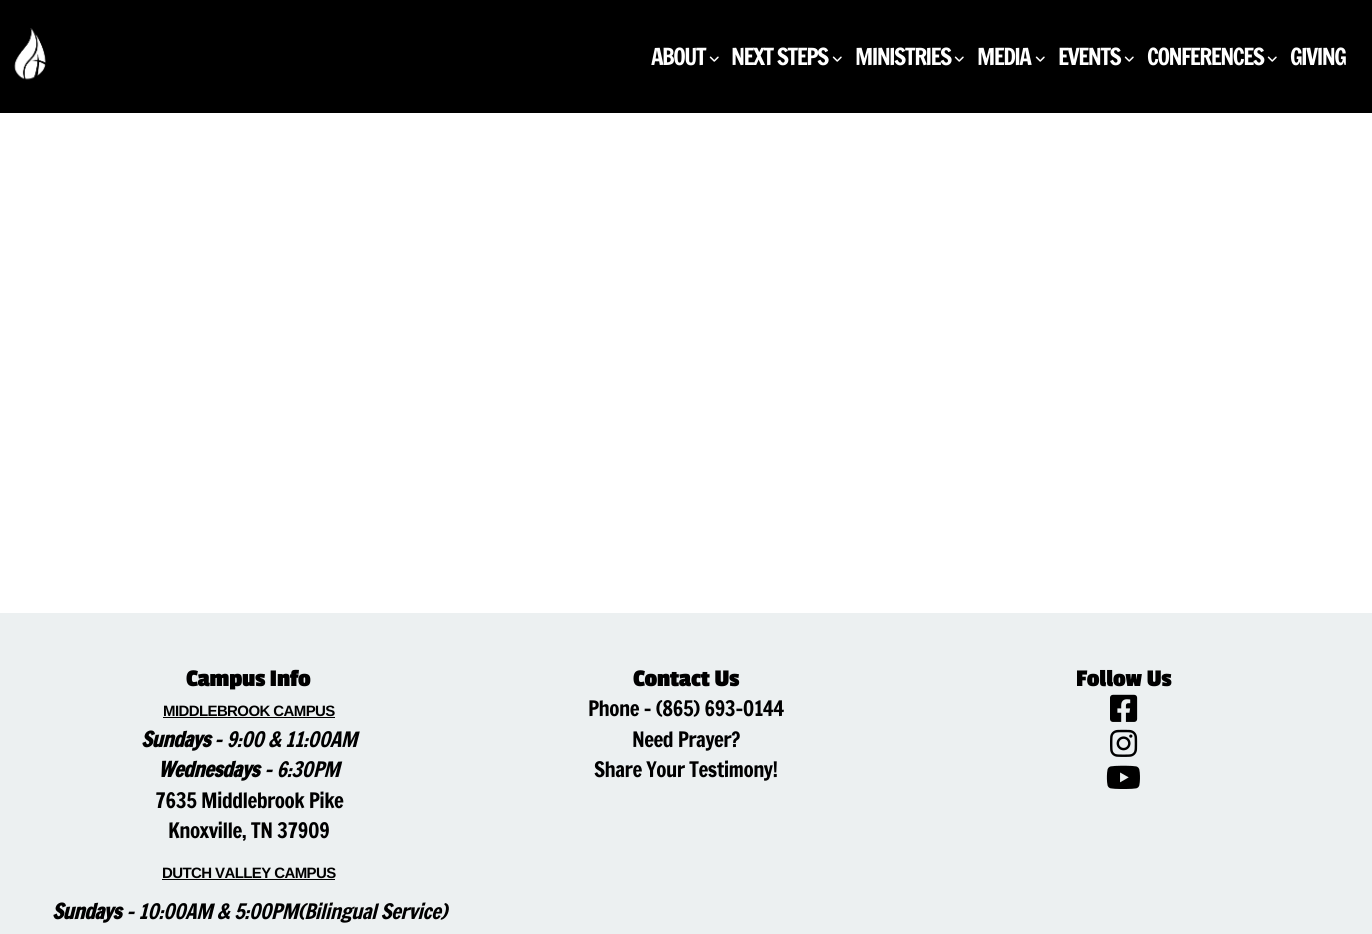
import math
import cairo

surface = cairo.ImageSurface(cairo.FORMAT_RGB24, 1372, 934)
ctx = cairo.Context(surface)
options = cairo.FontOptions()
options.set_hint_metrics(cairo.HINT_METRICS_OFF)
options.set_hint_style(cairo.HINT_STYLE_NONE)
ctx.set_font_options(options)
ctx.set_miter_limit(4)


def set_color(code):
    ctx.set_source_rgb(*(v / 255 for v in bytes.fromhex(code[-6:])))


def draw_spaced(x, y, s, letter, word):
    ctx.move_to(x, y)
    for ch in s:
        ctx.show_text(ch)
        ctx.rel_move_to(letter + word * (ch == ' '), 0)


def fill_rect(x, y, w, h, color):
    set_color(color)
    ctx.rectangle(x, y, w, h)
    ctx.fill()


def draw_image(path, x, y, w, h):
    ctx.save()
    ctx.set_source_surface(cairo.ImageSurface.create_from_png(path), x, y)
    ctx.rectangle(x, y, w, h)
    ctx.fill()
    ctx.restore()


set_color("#ffffff")
ctx.paint()
fill_rect(0, 0, 1372, 113, "#000000")
draw_image("assets/img1.png", 14, 28, 32, 52)
ctx.select_font_face("Francois One")
ctx.set_font_size(23)
set_color("#ffffff")
draw_spaced(651, 65, "ABOUT", -1.6, 0)
draw_image("assets/img2.png", 709, 56, 10, 6)
draw_spaced(731, 65, "NEXT STEPS", -1.6, 0)
draw_image("assets/img2.png", 832, 56, 10, 6)
draw_spaced(855, 65, "MINISTRIES", -1.6, 0)
draw_image("assets/img2.png", 954, 56, 10, 6)
draw_spaced(977, 65, "MEDIA", -1.6, 0)
draw_image("assets/img2.png", 1035, 56, 10, 6)
draw_spaced(1058, 65, "EVENTS", -1.6, 0)
draw_image("assets/img2.png", 1124, 56, 10, 6)
draw_spaced(1147, 65, "CONFERENCES", -1.6, 0)
draw_image("assets/img2.png", 1267, 56, 10, 6)
draw_spaced(1290, 65, "GIVING", -1.6, 0)
fill_rect(0, 613, 1372, 321, "#ecf0f1")
ctx.select_font_face("Passion One", cairo.FONT_SLANT_NORMAL, cairo.FONT_WEIGHT_BOLD)
ctx.set_font_size(25)
set_color("#000000")
draw_spaced(186, 686, "Campus Info", -0.25, 0)
draw_spaced(633, 686, "Contact Us", -0.25, 0)
draw_spaced(1076, 686, "Follow Us", -0.25, 0)
ctx.select_font_face("Liberation Sans", cairo.FONT_SLANT_NORMAL, cairo.FONT_WEIGHT_BOLD)
ctx.set_font_size(15)
draw_spaced(163, 716, "MIDDLEBROOK CAMPUS", -0.6, 0)
fill_rect(163, 717, 172, 1, "#000000")
ctx.select_font_face("Francois One", cairo.FONT_SLANT_ITALIC, cairo.FONT_WEIGHT_BOLD)
ctx.set_font_size(20.9)
draw_spaced(141, 747, "Sundays", -0.55, 0)
ctx.select_font_face("Francois One", cairo.FONT_SLANT_ITALIC)
draw_spaced(214, 747, "- 9:00 & 11:00AM", -0.55, 0)
ctx.select_font_face("Francois One", cairo.FONT_SLANT_ITALIC, cairo.FONT_WEIGHT_BOLD)
draw_spaced(158, 777, "Wednesdays", -0.55, 0)
ctx.select_font_face("Francois One", cairo.FONT_SLANT_ITALIC)
draw_spaced(264, 777, "- 6:30PM", -0.55, 0)
ctx.select_font_face("Francois One")
draw_spaced(155, 808, "7635 Middlebrook Pike", -0.55, 0)
draw_spaced(168, 838, "Knoxville, TN 37909", -0.55, 0)
draw_spaced(588, 716, "Phone - (865) 693-0144", -0.55, 0)
draw_spaced(632, 747, "Need Prayer?", -0.55, 0)
draw_spaced(594, 777, "Share Your Testimony!", -0.55, 0)
draw_image("assets/img3.png", 1110, 694, 28, 28)
draw_image("assets/img4.png", 1110, 729, 28, 28)
draw_image("assets/img5.png", 1106, 765, 34, 24)
ctx.select_font_face("Liberation Sans", cairo.FONT_SLANT_NORMAL, cairo.FONT_WEIGHT_BOLD)
ctx.set_font_size(15)
draw_spaced(162, 878, "DUTCH VALLEY CAMPUS", -0.6, 0)
fill_rect(162, 879, 173, 1, "#000000")
ctx.select_font_face("Francois One", cairo.FONT_SLANT_ITALIC, cairo.FONT_WEIGHT_BOLD)
ctx.set_font_size(20.9)
draw_spaced(52, 919, "Sundays", -0.55, 0)
ctx.select_font_face("Francois One", cairo.FONT_SLANT_ITALIC)
draw_spaced(126, 919, "- 10:00AM & 5:00PM(Bilingual Service)", -0.55, 0)
surface.write_to_png("output.png")
